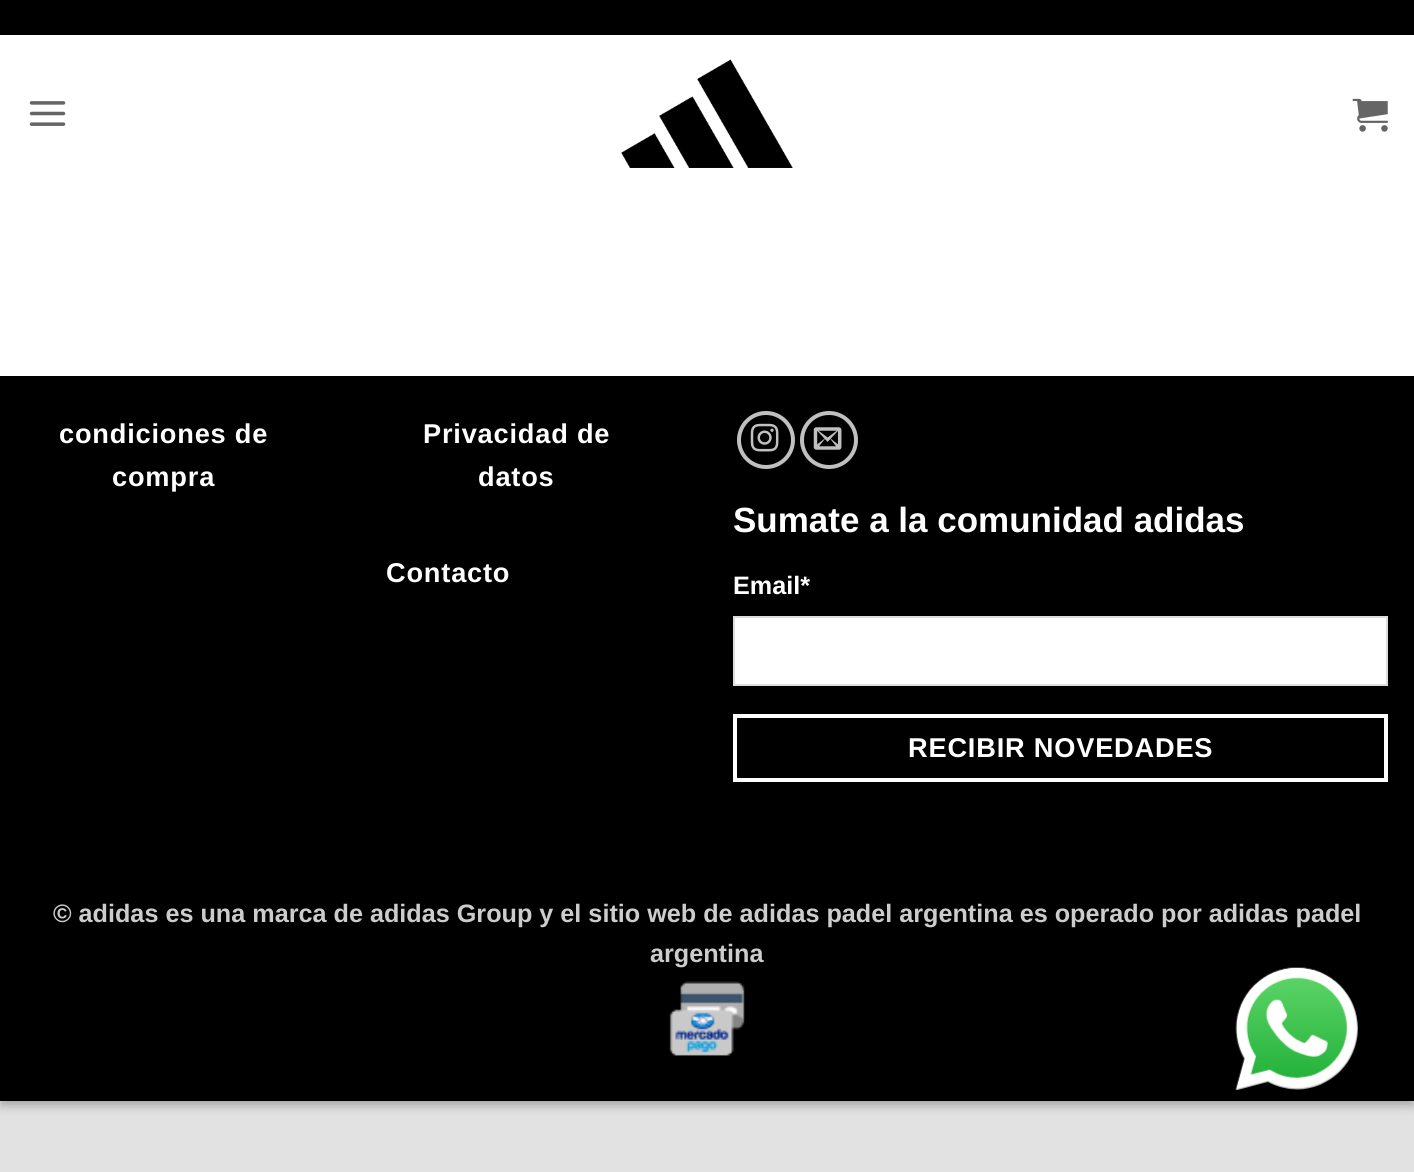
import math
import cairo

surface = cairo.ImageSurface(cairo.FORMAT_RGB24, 1414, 1172)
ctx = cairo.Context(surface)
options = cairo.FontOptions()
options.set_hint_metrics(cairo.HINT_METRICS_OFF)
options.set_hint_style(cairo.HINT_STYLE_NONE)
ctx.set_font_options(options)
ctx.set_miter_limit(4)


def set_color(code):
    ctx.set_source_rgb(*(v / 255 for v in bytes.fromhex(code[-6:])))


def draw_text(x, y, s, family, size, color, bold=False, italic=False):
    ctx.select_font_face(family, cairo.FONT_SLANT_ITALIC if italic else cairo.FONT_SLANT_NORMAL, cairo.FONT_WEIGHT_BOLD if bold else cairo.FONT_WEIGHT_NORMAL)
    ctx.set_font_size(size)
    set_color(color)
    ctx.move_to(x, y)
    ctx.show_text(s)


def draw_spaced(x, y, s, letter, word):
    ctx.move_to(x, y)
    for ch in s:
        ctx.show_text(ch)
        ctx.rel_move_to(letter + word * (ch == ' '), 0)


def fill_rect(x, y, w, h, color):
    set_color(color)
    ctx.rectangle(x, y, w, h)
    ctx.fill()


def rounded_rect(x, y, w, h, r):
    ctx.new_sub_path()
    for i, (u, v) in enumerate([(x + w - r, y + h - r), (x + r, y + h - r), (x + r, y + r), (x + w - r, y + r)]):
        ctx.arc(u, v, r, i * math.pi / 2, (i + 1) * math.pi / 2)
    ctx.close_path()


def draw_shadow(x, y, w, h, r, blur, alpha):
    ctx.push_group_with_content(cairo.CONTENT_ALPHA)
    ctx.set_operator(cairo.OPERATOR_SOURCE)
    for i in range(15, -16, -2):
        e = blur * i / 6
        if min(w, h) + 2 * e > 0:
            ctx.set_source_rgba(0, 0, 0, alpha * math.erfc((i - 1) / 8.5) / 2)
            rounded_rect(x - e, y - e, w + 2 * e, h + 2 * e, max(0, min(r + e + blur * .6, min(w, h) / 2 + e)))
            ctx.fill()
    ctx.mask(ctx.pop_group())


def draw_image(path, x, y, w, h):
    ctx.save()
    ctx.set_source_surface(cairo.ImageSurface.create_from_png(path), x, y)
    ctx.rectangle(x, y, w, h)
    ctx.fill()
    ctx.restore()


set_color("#e2e2e2")
ctx.paint()
set_color("#000000")
draw_shadow(0, 5, 1414, 1101, 0, 5, 0.23)
draw_shadow(7, 12, 1400, 1087, 0, 5, 0.16)
fill_rect(0, 35, 1414, 341, "#ffffff")
fill_rect(0, 0, 1414, 35, "#000000")
draw_image("assets/img1.png", 29, 101, 37, 25)
draw_image("assets/img2.png", 621, 59, 172, 109)
draw_image("assets/img3.png", 1352, 98, 36, 34)
fill_rect(0, 376, 1414, 725, "#000000")
ctx.select_font_face("Liberation Sans", cairo.FONT_SLANT_NORMAL, cairo.FONT_WEIGHT_BOLD)
ctx.set_font_size(27.2)
set_color("#ffffff")
draw_spaced(59, 443, "condiciones de", 0.8, 0)
draw_spaced(112, 486, "compra", 0.8, 0)
draw_spaced(423, 443, "Privacidad de", 0.8, 0)
draw_spaced(478, 486, "datos", 0.8, 0)
draw_spaced(386, 582, "Contacto", 0.8, 0)
ctx.new_path()
ctx.arc(766, 440, 27, 0, 2 * math.pi)
set_color("#c0c0c0")
ctx.set_line_width(4)
ctx.stroke()
draw_image("assets/img4.png", 750, 423, 29, 29)
ctx.arc(829, 440, 27, 0, 2 * math.pi)
ctx.stroke()
draw_image("assets/img5.png", 813, 427, 29, 23)
draw_text(733, 532, "Sumate a la comunidad adidas", "Liberation Sans", 35, "#ffffff", bold=True)
draw_text(733, 594, "Email*", "Liberation Sans", 25.2, "#ffffff", bold=True)
ctx.rectangle(734, 617, 653, 68)
ctx.fill_preserve()
set_color("#dddddd")
ctx.set_line_width(2)
ctx.stroke()
ctx.rectangle(735, 716, 651, 64)
set_color("#ffffff")
ctx.set_line_width(4)
ctx.stroke()
ctx.set_font_size(27.2)
draw_spaced(908, 757, "RECIBIR NOVEDADES", 0.8, 0)
draw_text(53, 922, "© adidas es una marca de adidas Group y el sitio web de adidas padel argentina es operado por adidas padel", "Liberation Sans", 25.2, "#cccccc", bold=True)
draw_text(650, 962, "argentina", "Liberation Sans", 25.2, "#cccccc", bold=True)
draw_image("assets/img6.png", 669, 981, 76, 75)
draw_image("assets/img7.png", 1235, 967, 123, 124)
surface.write_to_png("output.png")
